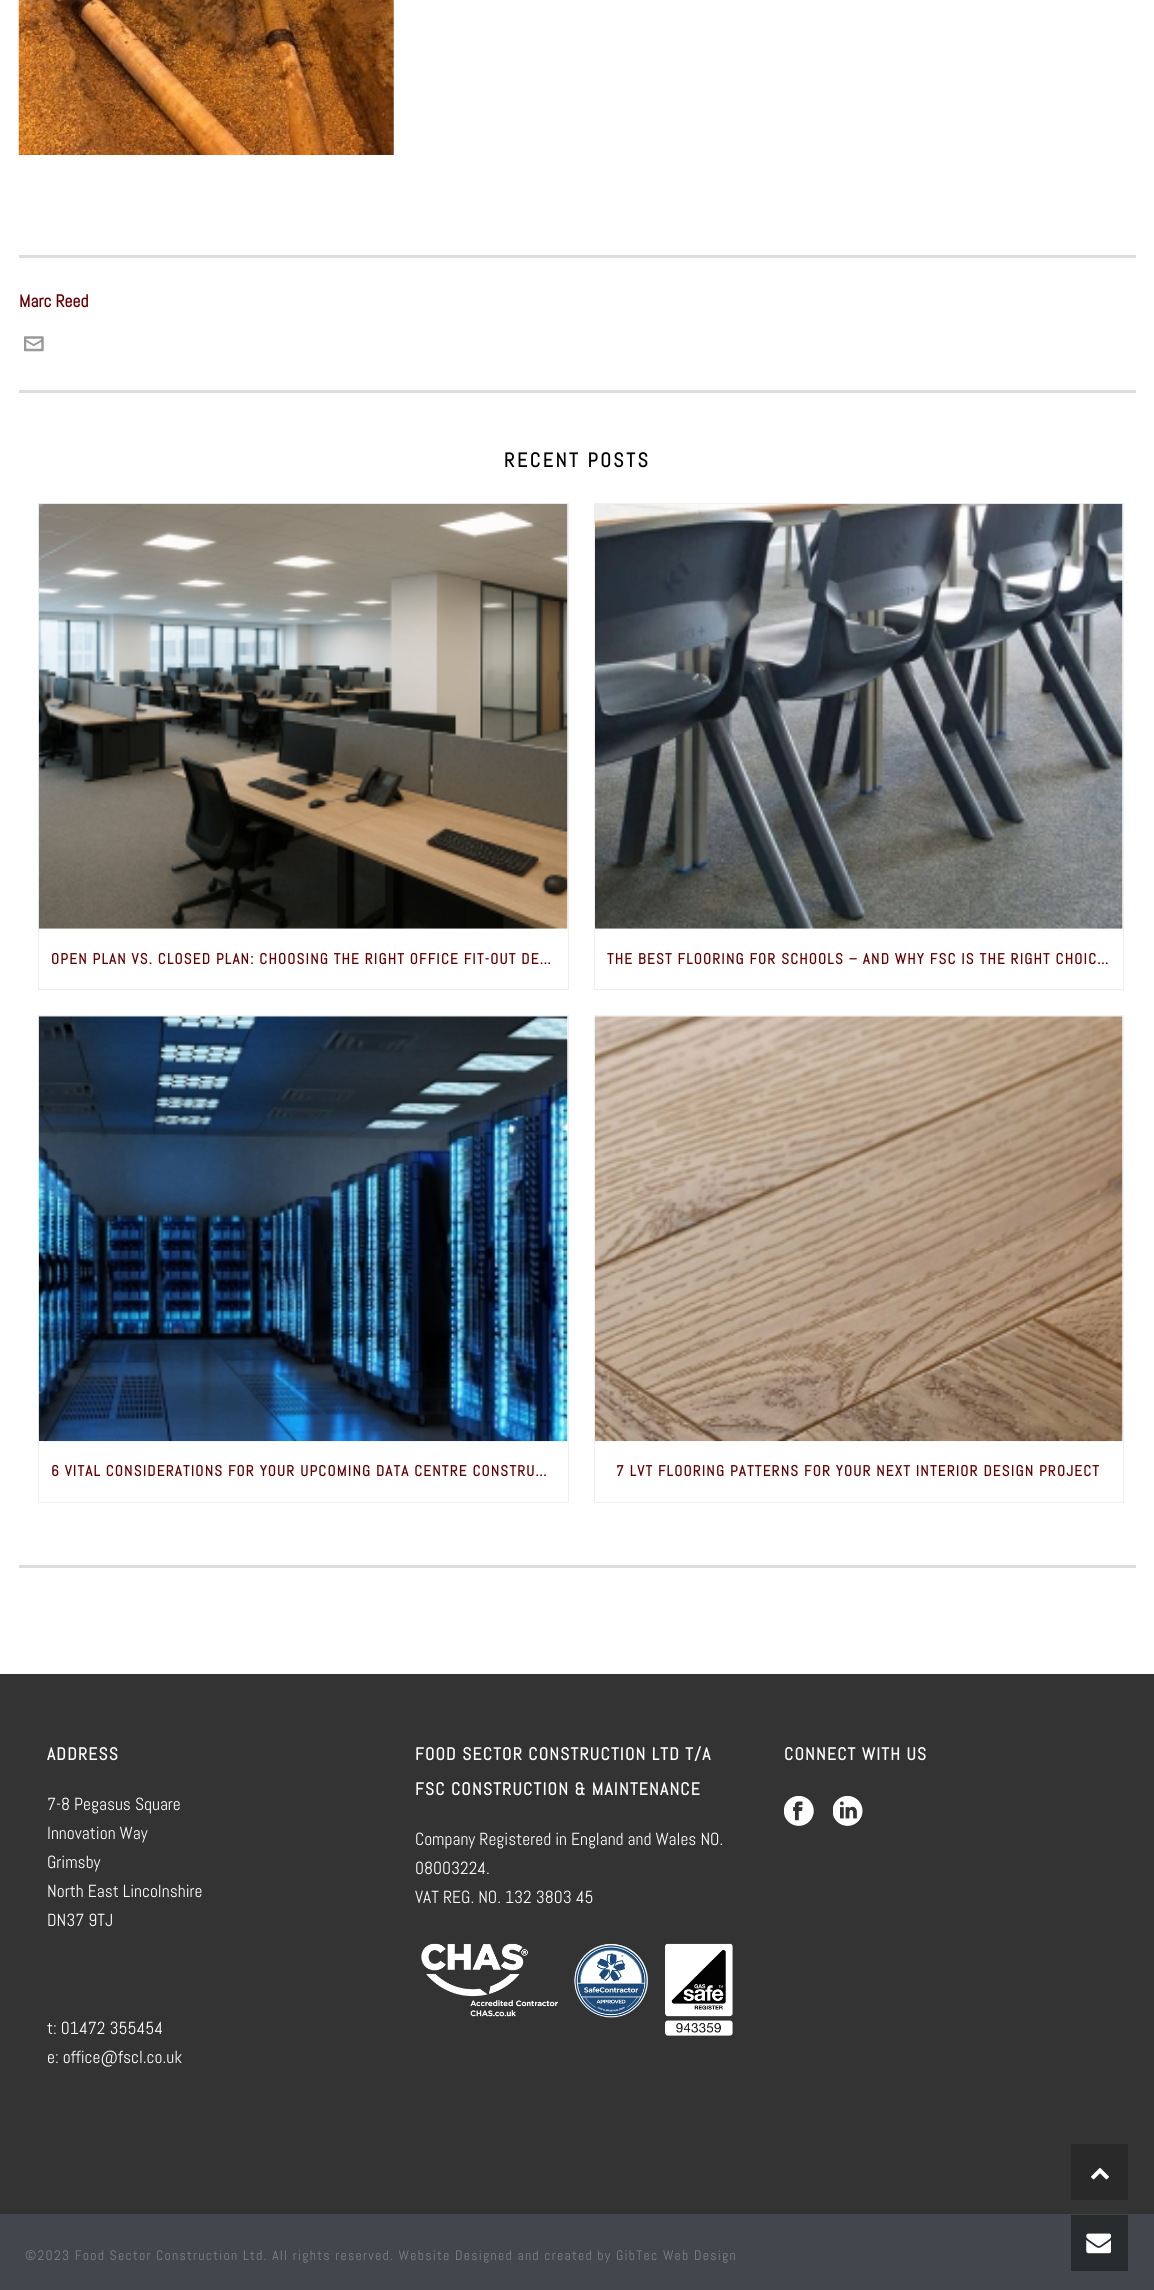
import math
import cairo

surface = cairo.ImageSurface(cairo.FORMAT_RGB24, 1154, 2290)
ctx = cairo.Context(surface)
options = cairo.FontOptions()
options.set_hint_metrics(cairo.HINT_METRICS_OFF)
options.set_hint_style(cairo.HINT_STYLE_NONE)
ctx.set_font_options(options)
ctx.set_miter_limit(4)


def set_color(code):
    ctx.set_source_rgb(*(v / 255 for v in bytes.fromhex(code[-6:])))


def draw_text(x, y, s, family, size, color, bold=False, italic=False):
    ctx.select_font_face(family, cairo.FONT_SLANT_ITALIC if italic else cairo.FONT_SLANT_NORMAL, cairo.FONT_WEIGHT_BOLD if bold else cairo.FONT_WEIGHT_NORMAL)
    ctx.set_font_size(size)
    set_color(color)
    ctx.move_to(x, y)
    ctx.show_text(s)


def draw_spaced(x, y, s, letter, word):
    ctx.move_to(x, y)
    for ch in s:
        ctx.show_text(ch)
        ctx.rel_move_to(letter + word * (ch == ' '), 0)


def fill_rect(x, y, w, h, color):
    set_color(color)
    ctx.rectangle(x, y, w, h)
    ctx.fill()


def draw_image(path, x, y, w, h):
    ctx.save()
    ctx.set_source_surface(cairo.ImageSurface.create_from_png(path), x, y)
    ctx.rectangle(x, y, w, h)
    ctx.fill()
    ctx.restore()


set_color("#ffffff")
ctx.paint()
draw_image("assets/img1.png", 18, 0, 376, 155)
fill_rect(19, 255, 1117, 3, "#dddddd")
fill_rect(19, 390, 1117, 3, "#dddddd")
draw_text(19, 307, "Marc Reed", "Abel", 17.5, "#660000", bold=True)
draw_image("assets/img2.png", 24, 336, 20, 16)
fill_rect(19, 1565, 1117, 3, "#dddddd")
ctx.set_font_size(20)
set_color("#000000")
draw_spaced(504, 467, "RECENT POSTS", 2.5, 0)
ctx.rectangle(38.5, 503.5, 530, 486)
set_color("#efefef")
ctx.set_line_width(1)
ctx.stroke()
draw_image("assets/img3.png", 38, 503, 530, 426)
ctx.set_font_size(15)
set_color("#660000")
draw_spaced(51, 964, "OPEN PLAN VS. CLOSED PLAN: CHOOSING THE RIGHT OFFICE FIT-OUT DE…", 1.25, 0)
ctx.rectangle(594.5, 503.5, 529, 486)
set_color("#efefef")
ctx.stroke()
draw_image("assets/img4.png", 595, 503, 528, 426)
set_color("#660000")
draw_spaced(607, 964, "THE BEST FLOORING FOR SCHOOLS – AND WHY FSC IS THE RIGHT CHOIC…", 1.25, 0)
ctx.rectangle(38.5, 1015.5, 530, 487)
set_color("#efefef")
ctx.stroke()
draw_image("assets/img5.png", 38, 1016, 530, 426)
set_color("#660000")
draw_spaced(51, 1476, "6 VITAL CONSIDERATIONS FOR YOUR UPCOMING DATA CENTRE CONSTRU…", 1.25, 0)
ctx.rectangle(594.5, 1015.5, 529, 487)
set_color("#efefef")
ctx.stroke()
draw_image("assets/img6.png", 595, 1016, 528, 426)
set_color("#660000")
draw_spaced(616, 1476, "7 LVT FLOORING PATTERNS FOR YOUR NEXT INTERIOR DESIGN PROJECT", 1.25, 0)
fill_rect(0, 1674, 1154, 540, "#333333")
ctx.set_font_size(17.5)
set_color("#ffffff")
draw_spaced(47, 1760, "ADDRESS", 1.25, 0)
draw_text(47, 1810, "7-8 Pegasus Square", "Abel", 17.5, "#ffffff")
draw_text(47, 1839, "Innovation Way", "Abel", 17.5, "#ffffff")
draw_text(47, 1868, "Grimsby", "Abel", 17.5, "#ffffff")
draw_text(47, 1897, "North East Lincolnshire", "Abel", 17.5, "#ffffff")
draw_text(47, 1926, "DN37 9TJ", "Abel", 17.5, "#ffffff")
draw_text(47, 2034, "t: 01472 355454", "Abel", 17.5, "#ffffff")
draw_text(47, 2063, "e: office@fscl.co.uk", "Abel", 17.5, "#ffffff")
ctx.select_font_face("Abel", cairo.FONT_SLANT_NORMAL, cairo.FONT_WEIGHT_BOLD)
draw_spaced(415, 1760, "FOOD SECTOR CONSTRUCTION LTD T/A", 1.25, 0)
draw_spaced(415, 1795, "FSC CONSTRUCTION & MAINTENANCE", 1.25, 0)
draw_text(415, 1845, "Company Registered in England and Wales NO.", "Abel", 17.5, "#ffffff")
draw_text(415, 1874, "08003224.", "Abel", 17.5, "#ffffff")
draw_text(415, 1903, "VAT REG. NO. 132 3803 45", "Abel", 17.5, "#ffffff")
draw_image("assets/img7.png", 421, 1943, 312, 93)
ctx.select_font_face("Abel", cairo.FONT_SLANT_NORMAL, cairo.FONT_WEIGHT_BOLD)
draw_spaced(784, 1760, "CONNECT WITH US", 1.25, 0)
draw_image("assets/img8.png", 784, 1796, 30, 30)
draw_image("assets/img9.png", 833, 1796, 30, 30)
fill_rect(0, 2214, 1154, 76, "#43474d")
ctx.select_font_face("Abel")
ctx.set_font_size(13.75)
set_color("#7d8083")
draw_spaced(25, 2260, "©2023 Food Sector Construction Ltd. All rights reserved. Website Designed and created by GibTec Web Design", 1.25, 0)
fill_rect(1071, 2144, 57, 56, "#292929")
draw_image("assets/img10.png", 1091, 2167, 18, 13)
fill_rect(1071, 2215, 57, 56, "#282b2e")
draw_image("assets/img11.png", 1086, 2233, 25, 21)
surface.write_to_png("output.png")
